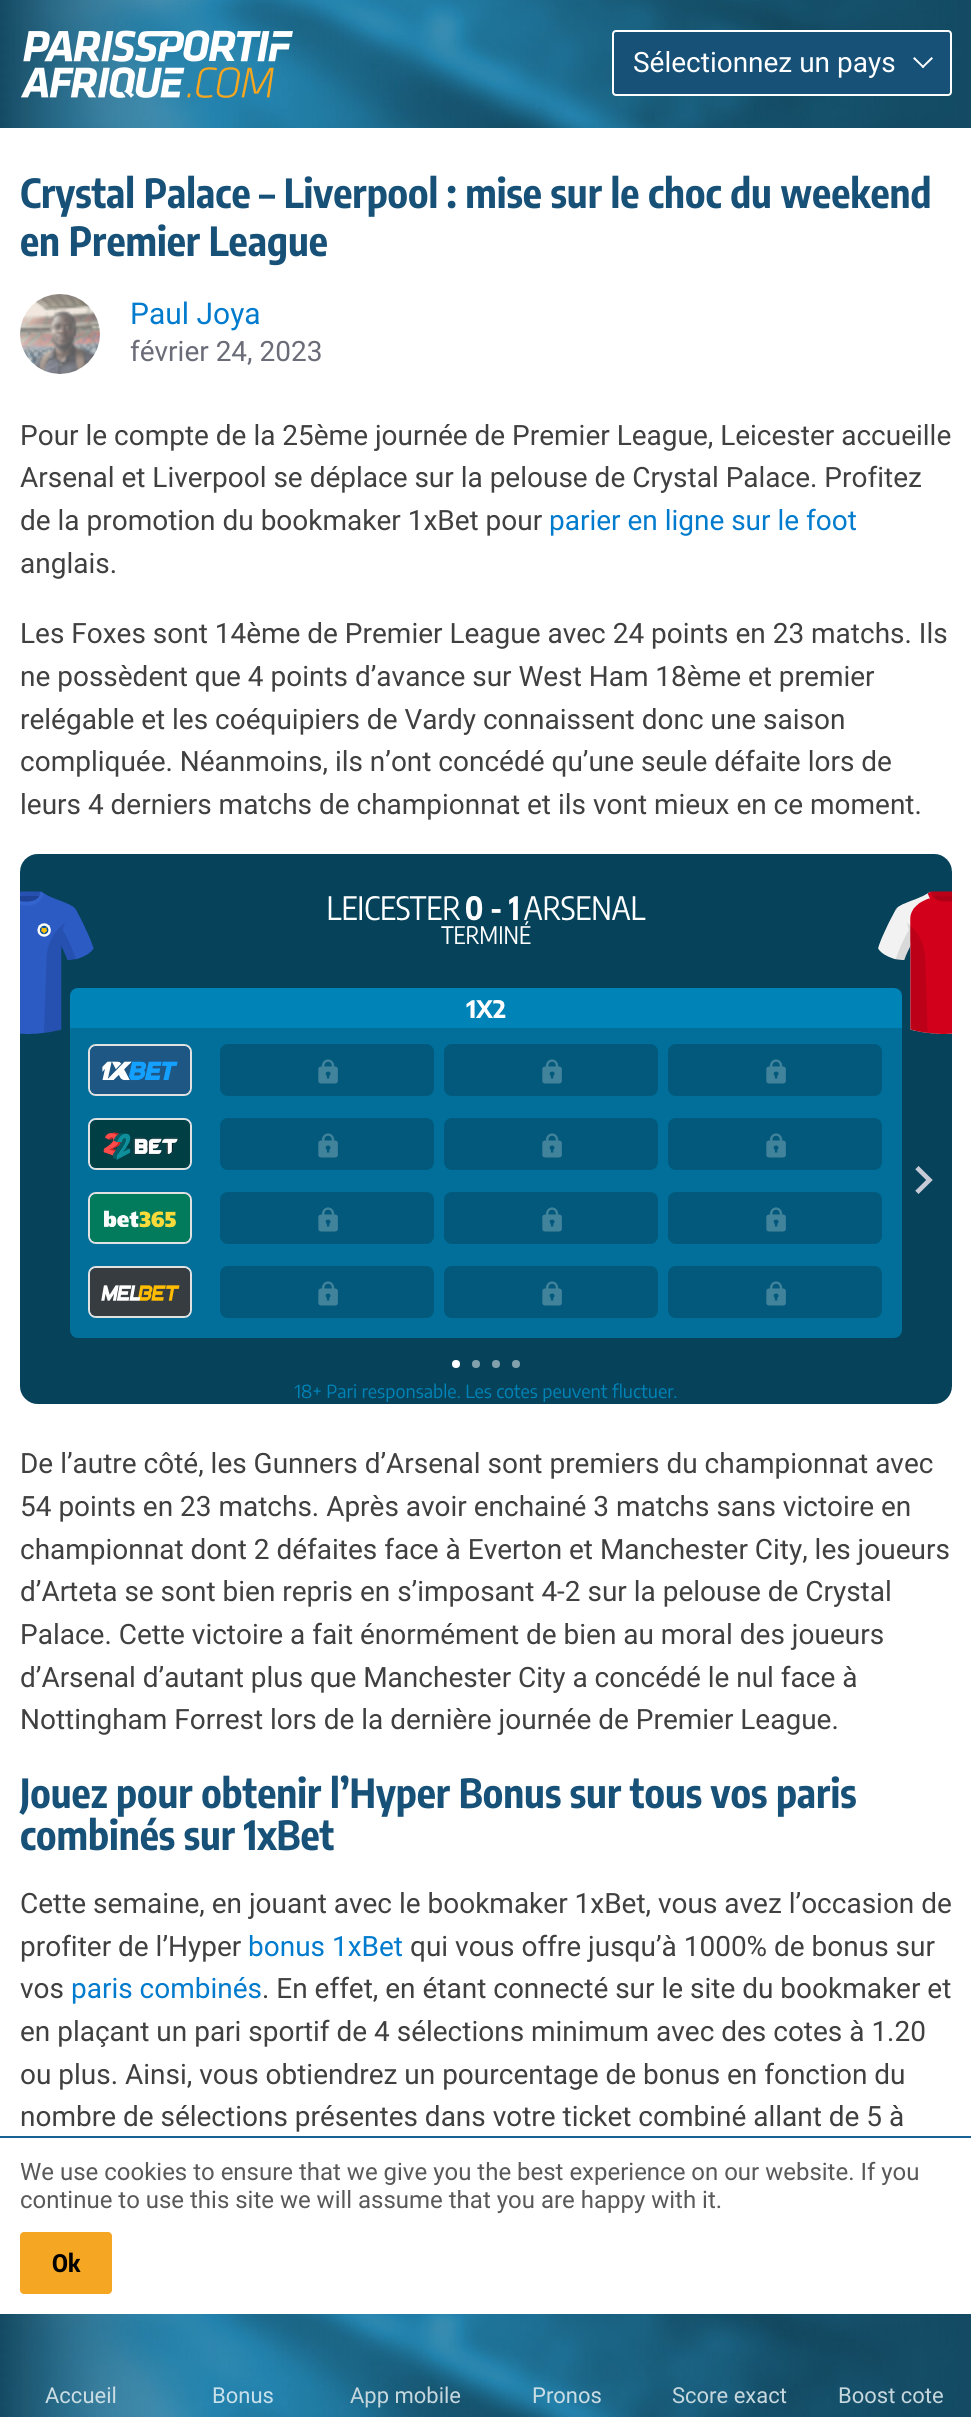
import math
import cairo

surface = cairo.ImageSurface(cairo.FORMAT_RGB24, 971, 2417)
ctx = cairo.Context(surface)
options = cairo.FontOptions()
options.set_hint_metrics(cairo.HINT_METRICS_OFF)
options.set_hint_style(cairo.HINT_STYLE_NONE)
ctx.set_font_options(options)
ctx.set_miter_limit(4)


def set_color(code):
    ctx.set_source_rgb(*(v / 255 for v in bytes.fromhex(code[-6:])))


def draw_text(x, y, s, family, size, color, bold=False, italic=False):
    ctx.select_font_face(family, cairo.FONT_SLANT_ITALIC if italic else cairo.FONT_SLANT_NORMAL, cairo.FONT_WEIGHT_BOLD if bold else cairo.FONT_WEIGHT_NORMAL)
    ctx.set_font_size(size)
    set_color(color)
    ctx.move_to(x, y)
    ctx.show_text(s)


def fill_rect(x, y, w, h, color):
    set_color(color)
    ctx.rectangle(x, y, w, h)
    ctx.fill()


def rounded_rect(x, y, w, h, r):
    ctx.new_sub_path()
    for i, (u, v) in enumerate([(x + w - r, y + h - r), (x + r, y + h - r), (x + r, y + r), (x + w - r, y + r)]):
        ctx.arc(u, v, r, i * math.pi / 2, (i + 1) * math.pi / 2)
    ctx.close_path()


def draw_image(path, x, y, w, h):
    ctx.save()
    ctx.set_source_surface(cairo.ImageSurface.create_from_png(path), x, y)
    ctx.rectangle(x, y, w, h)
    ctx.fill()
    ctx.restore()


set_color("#ffffff")
ctx.paint()
draw_image("assets/img1.png", 0, 0, 971, 128)
draw_image("assets/img2.png", 21, 30, 272, 68)
set_color("#175178")
rounded_rect(613, 31, 338, 64, 3)
ctx.fill_preserve()
set_color("#ffffff")
ctx.stroke()
draw_text(633, 72, "Sélectionnez un pays", "Roboto", 28, "#ffffff")
ctx.new_path()
ctx.move_to(931.5, 57)
ctx.line_to(933, 58.5)
ctx.line_to(923, 68)
ctx.line_to(921.5, 67)
ctx.close_path()
ctx.fill()
ctx.new_path()
ctx.move_to(914.5, 57)
ctx.line_to(924.5, 67)
ctx.line_to(923, 68)
ctx.line_to(913, 58.5)
ctx.close_path()
ctx.fill()
draw_text(20, 208, "Crystal Palace – Liverpool : mise sur le choc du weekend", "Encode Sans Condensed", 40, "#175178", bold=True)
draw_text(20, 256, "en Premier League", "Encode Sans Condensed", 40, "#175178", bold=True)
draw_image("assets/img3.png", 20, 294, 80, 80)
draw_text(130, 324, "Paul Joya", "Roboto", 30, "#017bcd")
draw_text(130, 361, "février 24, 2023", "Roboto", 28, "#6a6c78")
draw_text(20, 445, "Pour le compte de la 25ème journée de Premier League, Leicester accueille", "Roboto", 28, "#404040")
draw_text(20, 487, "Arsenal et Liverpool se déplace sur la pelouse de Crystal Palace. Profitez", "Roboto", 28, "#404040")
draw_text(20, 530, "de la promotion du bookmaker 1xBet pour", "Roboto", 28, "#404040")
draw_text(549, 530, "parier en ligne sur le foot", "Roboto", 28, "#017bcd")
draw_text(20, 573, "anglais.", "Roboto", 28, "#404040")
draw_text(20, 643, "Les Foxes sont 14ème de Premier League avec 24 points en 23 matchs. Ils", "Roboto", 28, "#404040")
draw_text(20, 686, "ne possèdent que 4 points d’avance sur West Ham 18ème et premier", "Roboto", 28, "#404040")
draw_text(20, 729, "relégable et les coéquipiers de Vardy connaissent donc une saison", "Roboto", 28, "#404040")
draw_text(20, 771, "compliquée. Néanmoins, ils n’ont concédé qu’une seule défaite lors de", "Roboto", 28, "#404040")
draw_text(20, 814, "leurs 4 derniers matchs de championnat et ils vont mieux en ce moment.", "Roboto", 28, "#404040")
draw_image("assets/img4.png", 20, 854, 932, 550)
draw_text(20, 1473, "De l’autre côté, les Gunners d’Arsenal sont premiers du championnat avec", "Roboto", 28, "#404040")
draw_text(20, 1516, "54 points en 23 matchs. Après avoir enchainé 3 matchs sans victoire en", "Roboto", 28, "#404040")
draw_text(20, 1559, "championnat dont 2 défaites face à Everton et Manchester City, les joueurs", "Roboto", 28, "#404040")
draw_text(20, 1601, "d’Arteta se sont bien repris en s’imposant 4-2 sur la pelouse de Crystal", "Roboto", 28, "#404040")
draw_text(20, 1644, "Palace. Cette victoire a fait énormément de bien au moral des joueurs", "Roboto", 28, "#404040")
draw_text(20, 1687, "d’Arsenal d’autant plus que Manchester City a concédé le nul face à", "Roboto", 28, "#404040")
draw_text(20, 1729, "Nottingham Forrest lors de la dernière journée de Premier League.", "Roboto", 28, "#404040")
draw_text(20, 1808, "Jouez pour obtenir l’Hyper Bonus sur tous vos paris", "Encode Sans Condensed", 40, "#175178", bold=True)
draw_text(20, 1850, "combinés sur 1xBet", "Encode Sans Condensed", 40, "#175178", bold=True)
draw_text(20, 1913, "Cette semaine, en jouant avec le bookmaker 1xBet, vous avez l’occasion de", "Roboto", 28, "#404040")
draw_text(20, 1956, "profiter de l’Hyper", "Roboto", 28, "#404040")
draw_text(248, 1956, "bonus 1xBet", "Roboto", 28, "#017bcd")
draw_text(410, 1956, "qui vous offre jusqu’à 1000% de bonus sur", "Roboto", 28, "#404040")
draw_text(20, 1998, "vos", "Roboto", 28, "#404040")
draw_text(71, 1998, "paris combinés", "Roboto", 28, "#017bcd")
draw_text(262, 1998, ". En effet, en étant connecté sur le site du bookmaker et", "Roboto", 28, "#404040")
draw_text(20, 2041, "en plaçant un pari sportif de 4 sélections minimum avec des cotes à 1.20", "Roboto", 28, "#404040")
draw_text(20, 2084, "ou plus. Ainsi, vous obtiendrez un pourcentage de bonus en fonction du", "Roboto", 28, "#404040")
draw_text(20, 2126, "nombre de sélections présentes dans votre ticket combiné allant de 5 à", "Roboto", 28, "#404040")
fill_rect(0, 2136, 971, 2, "#1b6294")
draw_text(20, 2180, "We use cookies to ensure that we give you the best experience on our website. If you", "Roboto", 24, "#595959")
draw_text(20, 2208, "continue to use this site we will assume that you are happy with it.", "Roboto", 24, "#595959")
set_color("#f5a623")
rounded_rect(20, 2232, 92, 62, 4)
ctx.fill()
draw_text(52, 2272, "Ok", "Encode Sans Condensed", 24, "#000000", bold=True)
draw_image("assets/img5.png", 0, 2314, 971, 103)
draw_text(45, 2403, "Accueil", "Roboto", 22, "#cbdde4")
draw_text(212, 2403, "Bonus", "Roboto", 22, "#c8e0ea")
draw_text(350, 2403, "App mobile", "Roboto", 22, "#c6d7de")
draw_text(532, 2403, "Pronos", "Roboto", 22, "#cbdde4")
draw_text(672, 2403, "Score exact", "Roboto", 22, "#c6d7de")
draw_text(838, 2403, "Boost cote", "Roboto", 22, "#c6d7de")
surface.write_to_png("output.png")
